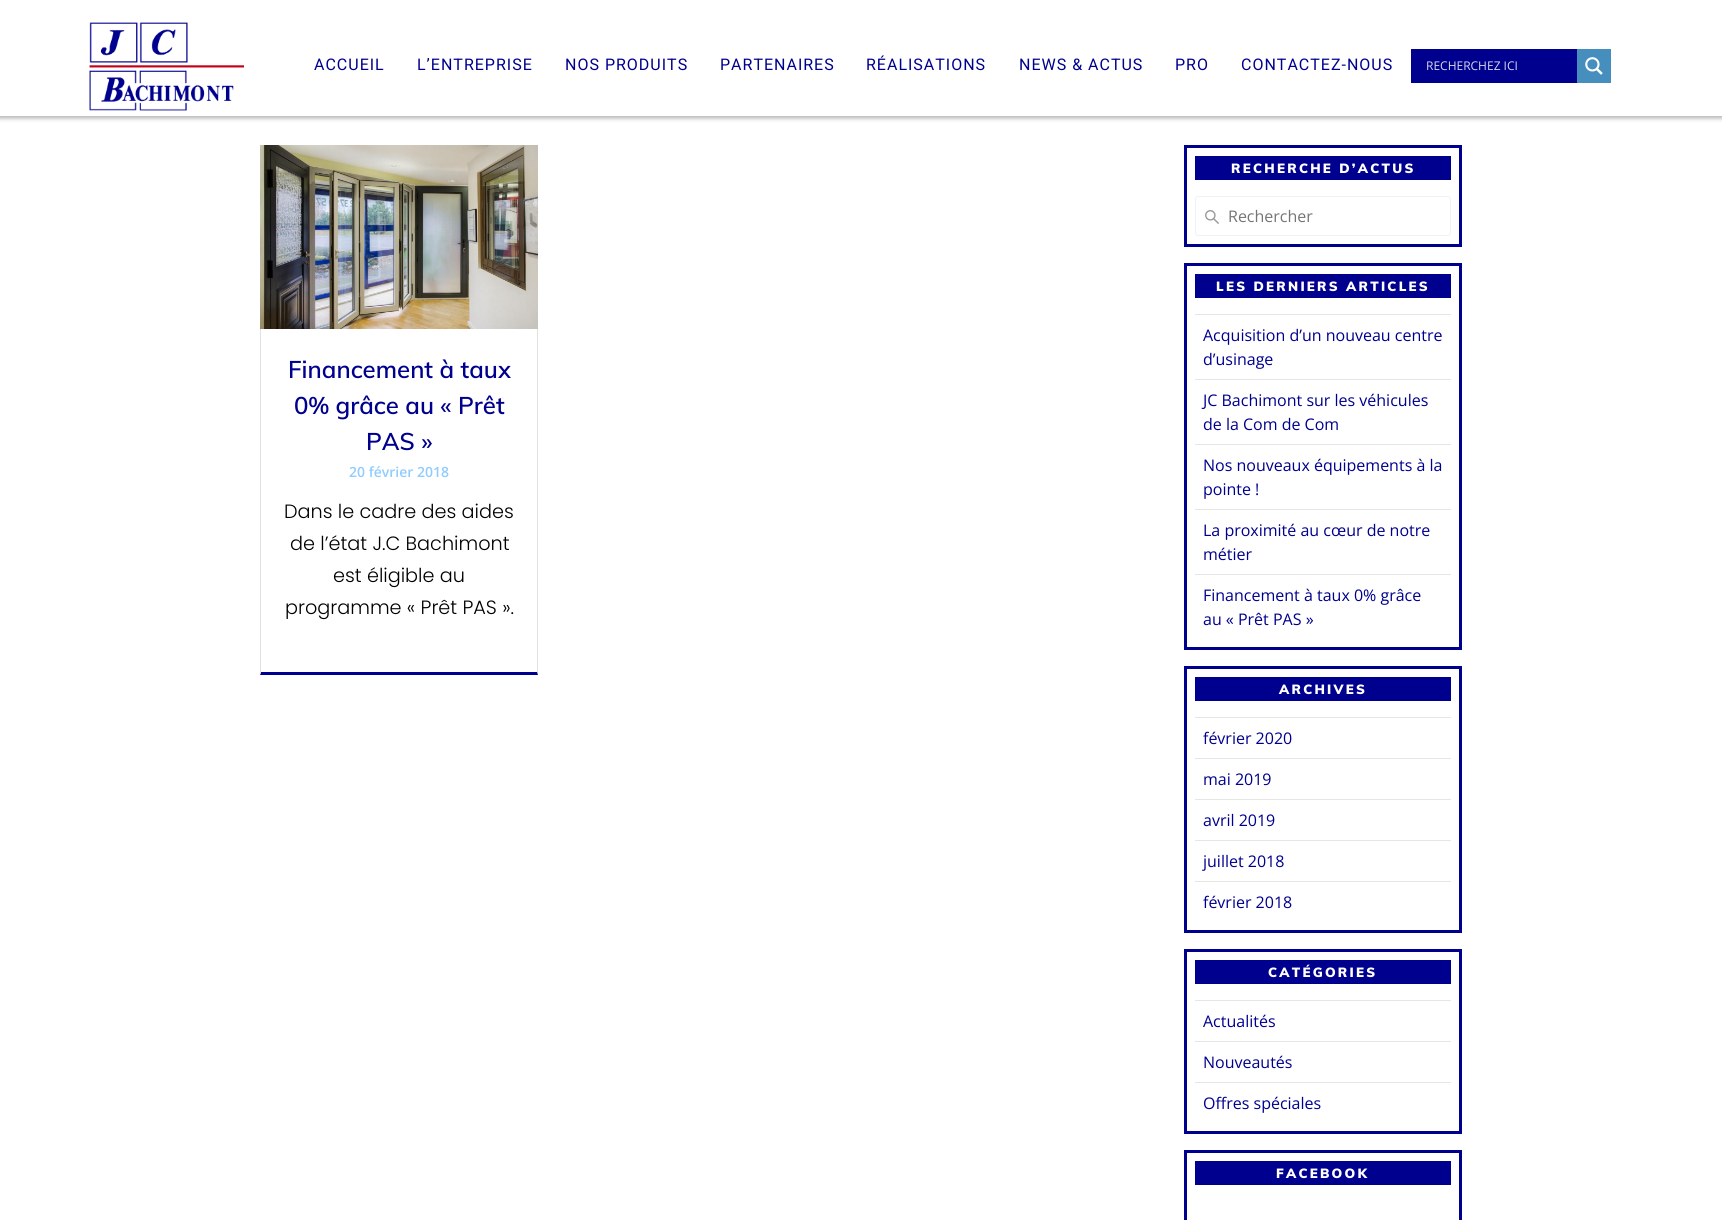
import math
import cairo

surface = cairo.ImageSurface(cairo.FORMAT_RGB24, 1722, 1220)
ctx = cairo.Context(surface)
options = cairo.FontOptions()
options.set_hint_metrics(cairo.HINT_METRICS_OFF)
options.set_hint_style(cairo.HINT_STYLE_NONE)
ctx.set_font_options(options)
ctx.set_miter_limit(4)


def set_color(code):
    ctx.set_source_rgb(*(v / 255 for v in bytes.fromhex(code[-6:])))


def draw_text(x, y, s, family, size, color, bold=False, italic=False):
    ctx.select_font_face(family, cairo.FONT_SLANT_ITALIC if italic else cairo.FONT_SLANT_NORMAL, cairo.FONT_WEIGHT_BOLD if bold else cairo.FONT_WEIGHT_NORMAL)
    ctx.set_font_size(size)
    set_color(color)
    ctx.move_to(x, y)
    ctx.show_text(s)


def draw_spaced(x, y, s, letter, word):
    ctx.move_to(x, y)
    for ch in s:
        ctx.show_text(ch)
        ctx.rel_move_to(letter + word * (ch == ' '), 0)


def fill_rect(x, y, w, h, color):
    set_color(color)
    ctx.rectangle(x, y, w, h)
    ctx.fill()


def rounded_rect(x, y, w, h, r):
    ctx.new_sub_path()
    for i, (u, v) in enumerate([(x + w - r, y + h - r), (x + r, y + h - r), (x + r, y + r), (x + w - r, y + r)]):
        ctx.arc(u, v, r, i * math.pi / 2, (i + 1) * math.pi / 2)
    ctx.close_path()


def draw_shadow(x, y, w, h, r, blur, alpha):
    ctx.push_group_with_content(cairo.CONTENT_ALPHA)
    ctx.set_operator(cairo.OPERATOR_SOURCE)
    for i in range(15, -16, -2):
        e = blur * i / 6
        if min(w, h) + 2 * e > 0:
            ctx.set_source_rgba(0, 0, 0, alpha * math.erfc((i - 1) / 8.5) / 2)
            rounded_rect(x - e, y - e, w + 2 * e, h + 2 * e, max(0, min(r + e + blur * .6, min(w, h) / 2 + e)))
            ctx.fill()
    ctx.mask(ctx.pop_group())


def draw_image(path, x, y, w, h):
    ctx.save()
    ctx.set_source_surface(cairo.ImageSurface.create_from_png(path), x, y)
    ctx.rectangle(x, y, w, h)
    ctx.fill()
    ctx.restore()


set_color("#ffffff")
ctx.paint()
set_color("#000000")
draw_shadow(-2, -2, 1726, 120, 0, 2.5, 0.33)
fill_rect(0, 0, 1722, 116, "#ffffff")
draw_image("assets/img1.png", 89, 22, 155, 89)
ctx.select_font_face("Roboto")
ctx.set_font_size(16)
set_color("#00008e")
draw_spaced(314, 70, "ACCUEIL", 1, 0)
draw_spaced(417, 70, "L’ENTREPRISE", 1, 0)
draw_spaced(565, 70, "NOS PRODUITS", 1, 0)
draw_spaced(720, 70, "PARTENAIRES", 1, 0)
draw_spaced(866, 70, "RÉALISATIONS", 1, 0)
draw_spaced(1019, 70, "NEWS & ACTUS", 1, 0)
draw_spaced(1175, 70, "PRO", 1, 0)
draw_spaced(1241, 70, "CONTACTEZ-NOUS", 1, 0)
fill_rect(1411, 49, 166, 34, "#00008e")
draw_text(1426, 70, "RECHERCHEZ ICI", "Open Sans", 12, "#d9d9ee")
fill_rect(1577, 49, 34, 34, "#468ebe")
draw_image("assets/img2.png", 1585, 57, 18, 18)
set_color("#e0e1e1")
ctx.new_path()
ctx.move_to(538, 145)
ctx.line_to(538, 675)
ctx.line_to(537, 672)
ctx.line_to(537, 146)
ctx.close_path()
ctx.fill()
set_color("#00008e")
ctx.new_path()
ctx.move_to(538, 675)
ctx.line_to(260, 675)
ctx.line_to(261, 672)
ctx.line_to(537, 672)
ctx.close_path()
ctx.fill()
set_color("#e0e1e1")
ctx.new_path()
ctx.move_to(260, 675)
ctx.line_to(260, 145)
ctx.line_to(261, 146)
ctx.line_to(261, 672)
ctx.close_path()
ctx.fill()
draw_image("assets/img3.png", 260, 145, 278, 184)
draw_text(288, 378, "Financement à taux", "Muli SemiBold", 24, "#00008e")
draw_text(294, 414, "0% grâce au « Prêt", "Muli SemiBold", 24, "#00008e")
draw_text(366, 450, "PAS »", "Muli SemiBold", 24, "#00008e")
draw_text(349, 477, "20 février 2018", "Open Sans SemiBold", 14, "#8fccff")
draw_text(284, 518, "Dans le cadre des aides", "Poppins Light", 19.25, "#000000")
draw_text(290, 550, "de l’état J.C Bachimont", "Poppins Light", 19.25, "#000000")
draw_text(333, 582, "est éligible au", "Poppins Light", 19.25, "#000000")
draw_text(285, 614, "programme « Prêt PAS ».", "Poppins Light", 19.25, "#000000")
ctx.rectangle(1185.5, 146.5, 275, 99)
set_color("#00008e")
ctx.set_line_width(3)
ctx.stroke()
fill_rect(1195, 156, 256, 24, "#00008e")
ctx.select_font_face("Muli Black")
ctx.set_font_size(13.25)
set_color("#ffffff")
draw_spaced(1231, 173, "RECHERCHE D’ACTUS", 2.25, 0)
draw_image("assets/img4.png", 1205, 210, 14, 14)
rounded_rect(1195.5, 196.5, 255, 39, 2.5)
set_color("#f1f1f1")
ctx.set_line_width(1)
ctx.stroke()
draw_text(1228, 222, "Rechercher", "Open Sans", 16, "#757575")
ctx.rectangle(1185.5, 264.5, 275, 384)
set_color("#00008e")
ctx.set_line_width(3)
ctx.stroke()
fill_rect(1195, 274, 256, 24, "#00008e")
ctx.select_font_face("Muli Black")
ctx.set_font_size(13.25)
set_color("#ffffff")
draw_spaced(1216, 291, "LES DERNIERS ARTICLES", 2.25, 0)
fill_rect(1195, 314, 256, 1, "#e6e6e6")
draw_text(1203, 341, "Acquisition d’un nouveau centre", "Open Sans", 16, "#00008e")
draw_text(1203, 365, "d’usinage", "Open Sans", 16, "#00008e")
fill_rect(1195, 379, 256, 1, "#e6e6e6")
draw_text(1203, 406, "JC Bachimont sur les véhicules", "Open Sans", 16, "#00008e")
draw_text(1203, 430, "de la Com de Com", "Open Sans", 16, "#00008e")
fill_rect(1195, 444, 256, 1, "#e6e6e6")
draw_text(1203, 471, "Nos nouveaux équipements à la", "Open Sans", 16, "#00008e")
draw_text(1203, 495, "pointe !", "Open Sans", 16, "#00008e")
fill_rect(1195, 509, 256, 1, "#e6e6e6")
draw_text(1203, 536, "La proximité au cœur de notre", "Open Sans", 16, "#00008e")
draw_text(1203, 560, "métier", "Open Sans", 16, "#00008e")
fill_rect(1195, 574, 256, 1, "#e6e6e6")
draw_text(1203, 601, "Financement à taux 0% grâce", "Open Sans", 16, "#00008e")
draw_text(1203, 625, "au « Prêt PAS »", "Open Sans", 16, "#00008e")
ctx.rectangle(1185.5, 667.5, 275, 264)
ctx.stroke()
fill_rect(1195, 677, 256, 24, "#00008e")
ctx.select_font_face("Muli Black")
ctx.set_font_size(13.25)
set_color("#ffffff")
draw_spaced(1279, 694, "ARCHIVES", 2.25, 0)
fill_rect(1195, 717, 256, 1, "#e6e6e6")
draw_text(1203, 744, "février 2020", "Open Sans", 16, "#00008e")
fill_rect(1195, 758, 256, 1, "#e6e6e6")
draw_text(1203, 785, "mai 2019", "Open Sans", 16, "#00008e")
fill_rect(1195, 799, 256, 1, "#e6e6e6")
draw_text(1203, 826, "avril 2019", "Open Sans", 16, "#00008e")
fill_rect(1195, 840, 256, 1, "#e6e6e6")
draw_text(1203, 867, "juillet 2018", "Open Sans", 16, "#00008e")
fill_rect(1195, 881, 256, 1, "#e6e6e6")
draw_text(1203, 908, "février 2018", "Open Sans", 16, "#00008e")
ctx.rectangle(1185.5, 950.5, 275, 182)
ctx.stroke()
fill_rect(1195, 960, 256, 24, "#00008e")
ctx.select_font_face("Muli Black")
ctx.set_font_size(13.25)
set_color("#ffffff")
draw_spaced(1268, 977, "CATÉGORIES", 2.25, 0)
fill_rect(1195, 1000, 256, 1, "#e6e6e6")
draw_text(1203, 1027, "Actualités", "Open Sans", 16, "#00008e")
fill_rect(1195, 1041, 256, 1, "#e6e6e6")
draw_text(1203, 1068, "Nouveautés", "Open Sans", 16, "#00008e")
fill_rect(1195, 1082, 256, 1, "#e6e6e6")
draw_text(1203, 1109, "Offres spéciales", "Open Sans", 16, "#00008e")
ctx.rectangle(1185.5, 1151.5, 275, 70)
ctx.stroke()
fill_rect(1195, 1161, 256, 24, "#00008e")
ctx.select_font_face("Muli Black")
ctx.set_font_size(13.25)
set_color("#ffffff")
draw_spaced(1276, 1178, "FACEBOOK", 2.25, 0)
surface.write_to_png("output.png")
